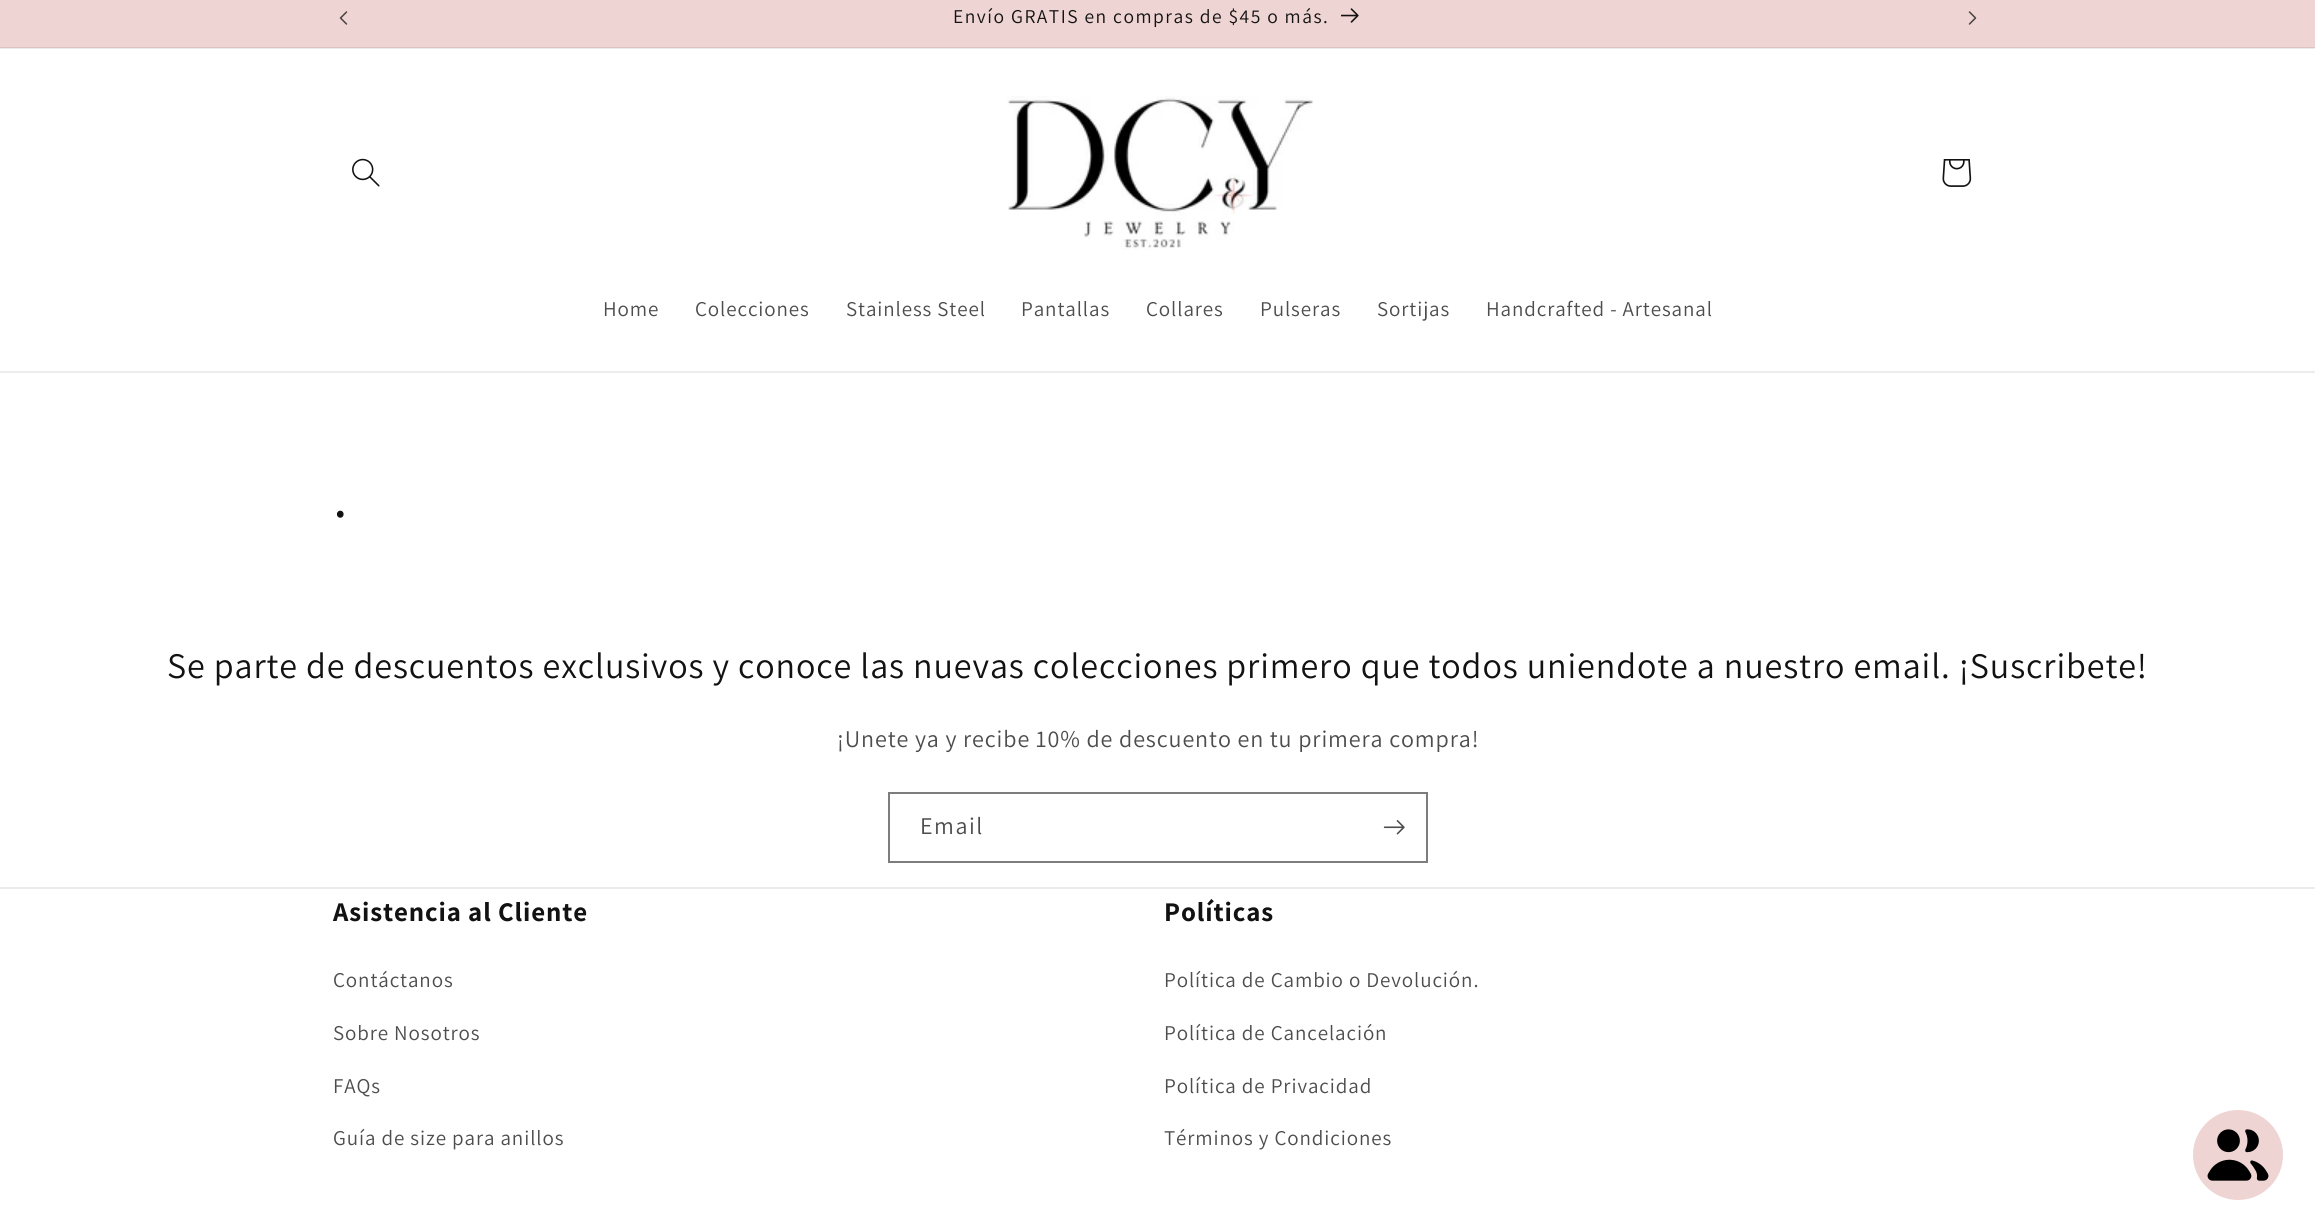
import math
import cairo

surface = cairo.ImageSurface(cairo.FORMAT_RGB24, 2315, 1231)
ctx = cairo.Context(surface)
options = cairo.FontOptions()
options.set_hint_metrics(cairo.HINT_METRICS_OFF)
options.set_hint_style(cairo.HINT_STYLE_NONE)
ctx.set_font_options(options)
ctx.set_miter_limit(4)


def set_color(code):
    ctx.set_source_rgb(*(v / 255 for v in bytes.fromhex(code[-6:])))


def draw_spaced(x, y, s, letter, word):
    ctx.move_to(x, y)
    for ch in s:
        ctx.show_text(ch)
        ctx.rel_move_to(letter + word * (ch == ' '), 0)


def fill_rect(x, y, w, h, color):
    set_color(color)
    ctx.rectangle(x, y, w, h)
    ctx.fill()


def draw_image(path, x, y, w, h):
    ctx.save()
    ctx.set_source_surface(cairo.ImageSurface.create_from_png(path), x, y)
    ctx.rectangle(x, y, w, h)
    ctx.fill()
    ctx.restore()


set_color("#ffffff")
ctx.paint()
fill_rect(0, 48, 2315, 1, "#ececec")
fill_rect(0, 0, 2315, 47, "#eed4d2")
fill_rect(0, 47, 2315, 1, "#dcc4c3")
draw_image("assets/img1.png", 339, 11, 9, 14)
ctx.select_font_face("Assistant")
ctx.set_font_size(19.5)
set_color("#121212")
draw_spaced(953, 23, "Envío GRATIS en compras de $45 o más.", 1.5, 0)
draw_image("assets/img2.png", 1341, 8, 18, 15)
draw_image("assets/img3.png", 1968, 11, 9, 14)
fill_rect(0, 371, 2315, 2, "#ececec")
draw_image("assets/img4.png", 352, 158, 28, 29)
draw_image("assets/img5.png", 1007, 96, 306, 154)
draw_image("assets/img6.png", 1942, 159, 30, 28)
ctx.set_font_size(21)
set_color("#4d4d4d")
draw_spaced(603, 316, "Home", 0.9, 0)
draw_spaced(695, 316, "Colecciones", 0.9, 0)
draw_spaced(846, 316, "Stainless Steel", 0.9, 0)
draw_spaced(1021, 316, "Pantallas", 0.9, 0)
draw_spaced(1146, 316, "Collares", 0.9, 0)
draw_spaced(1260, 316, "Pulseras", 0.9, 0)
draw_spaced(1377, 316, "Sortijas", 0.9, 0)
draw_spaced(1486, 316, "Handcrafted - Artesanal", 0.9, 0)
ctx.set_font_size(60)
set_color("#121212")
draw_spaced(333, 517, ".", 0.9, 0)
ctx.set_font_size(36)
draw_spaced(167, 678, "Se parte de descuentos exclusivos y conoce las nuevas colecciones primero que todos uniendote a nuestro email. ¡Suscribete!", 0.9, 0)
ctx.set_font_size(24)
set_color("#4d4d4d")
draw_spaced(837, 747, "¡Unete ya y recibe 10% de descuento en tu primera compra!", 0.9, 0)
ctx.rectangle(889, 793, 538, 69)
set_color("#7d7d7d")
ctx.stroke()
set_color("#4d4d4d")
draw_spaced(920, 834, "Email", 1.5, 0)
draw_image("assets/img7.png", 1383, 820, 22, 15)
fill_rect(0, 887, 2315, 2, "#ececec")
ctx.select_font_face("Assistant", cairo.FONT_SLANT_NORMAL, cairo.FONT_WEIGHT_BOLD)
ctx.set_font_size(27)
set_color("#121212")
draw_spaced(333, 921, "Asistencia al Cliente", 0.9, 0)
ctx.select_font_face("Assistant")
ctx.set_font_size(21)
set_color("#4d4d4d")
draw_spaced(333, 987, "Contáctanos", 0.9, 0)
draw_spaced(333, 1040, "Sobre Nosotros", 0.9, 0)
draw_spaced(333, 1093, "FAQs", 0.9, 0)
draw_spaced(333, 1145, "Guía de size para anillos", 0.9, 0)
ctx.select_font_face("Assistant", cairo.FONT_SLANT_NORMAL, cairo.FONT_WEIGHT_BOLD)
ctx.set_font_size(27)
set_color("#121212")
draw_spaced(1164, 921, "Políticas", 0.9, 0)
ctx.select_font_face("Assistant")
ctx.set_font_size(21)
set_color("#4d4d4d")
draw_spaced(1164, 987, "Política de Cambio o Devolución.", 0.9, 0)
draw_spaced(1164, 1040, "Política de Cancelación", 0.9, 0)
draw_spaced(1164, 1093, "Política de Privacidad", 0.9, 0)
draw_spaced(1164, 1145, "Términos y Condiciones", 0.9, 0)
set_color("#eed4d2")
ctx.new_path()
ctx.arc(2238, 1155, 45, 0, 2 * math.pi)
ctx.fill()
draw_image("assets/img8.png", 2207, 1129, 62, 52)
surface.write_to_png("output.png")
